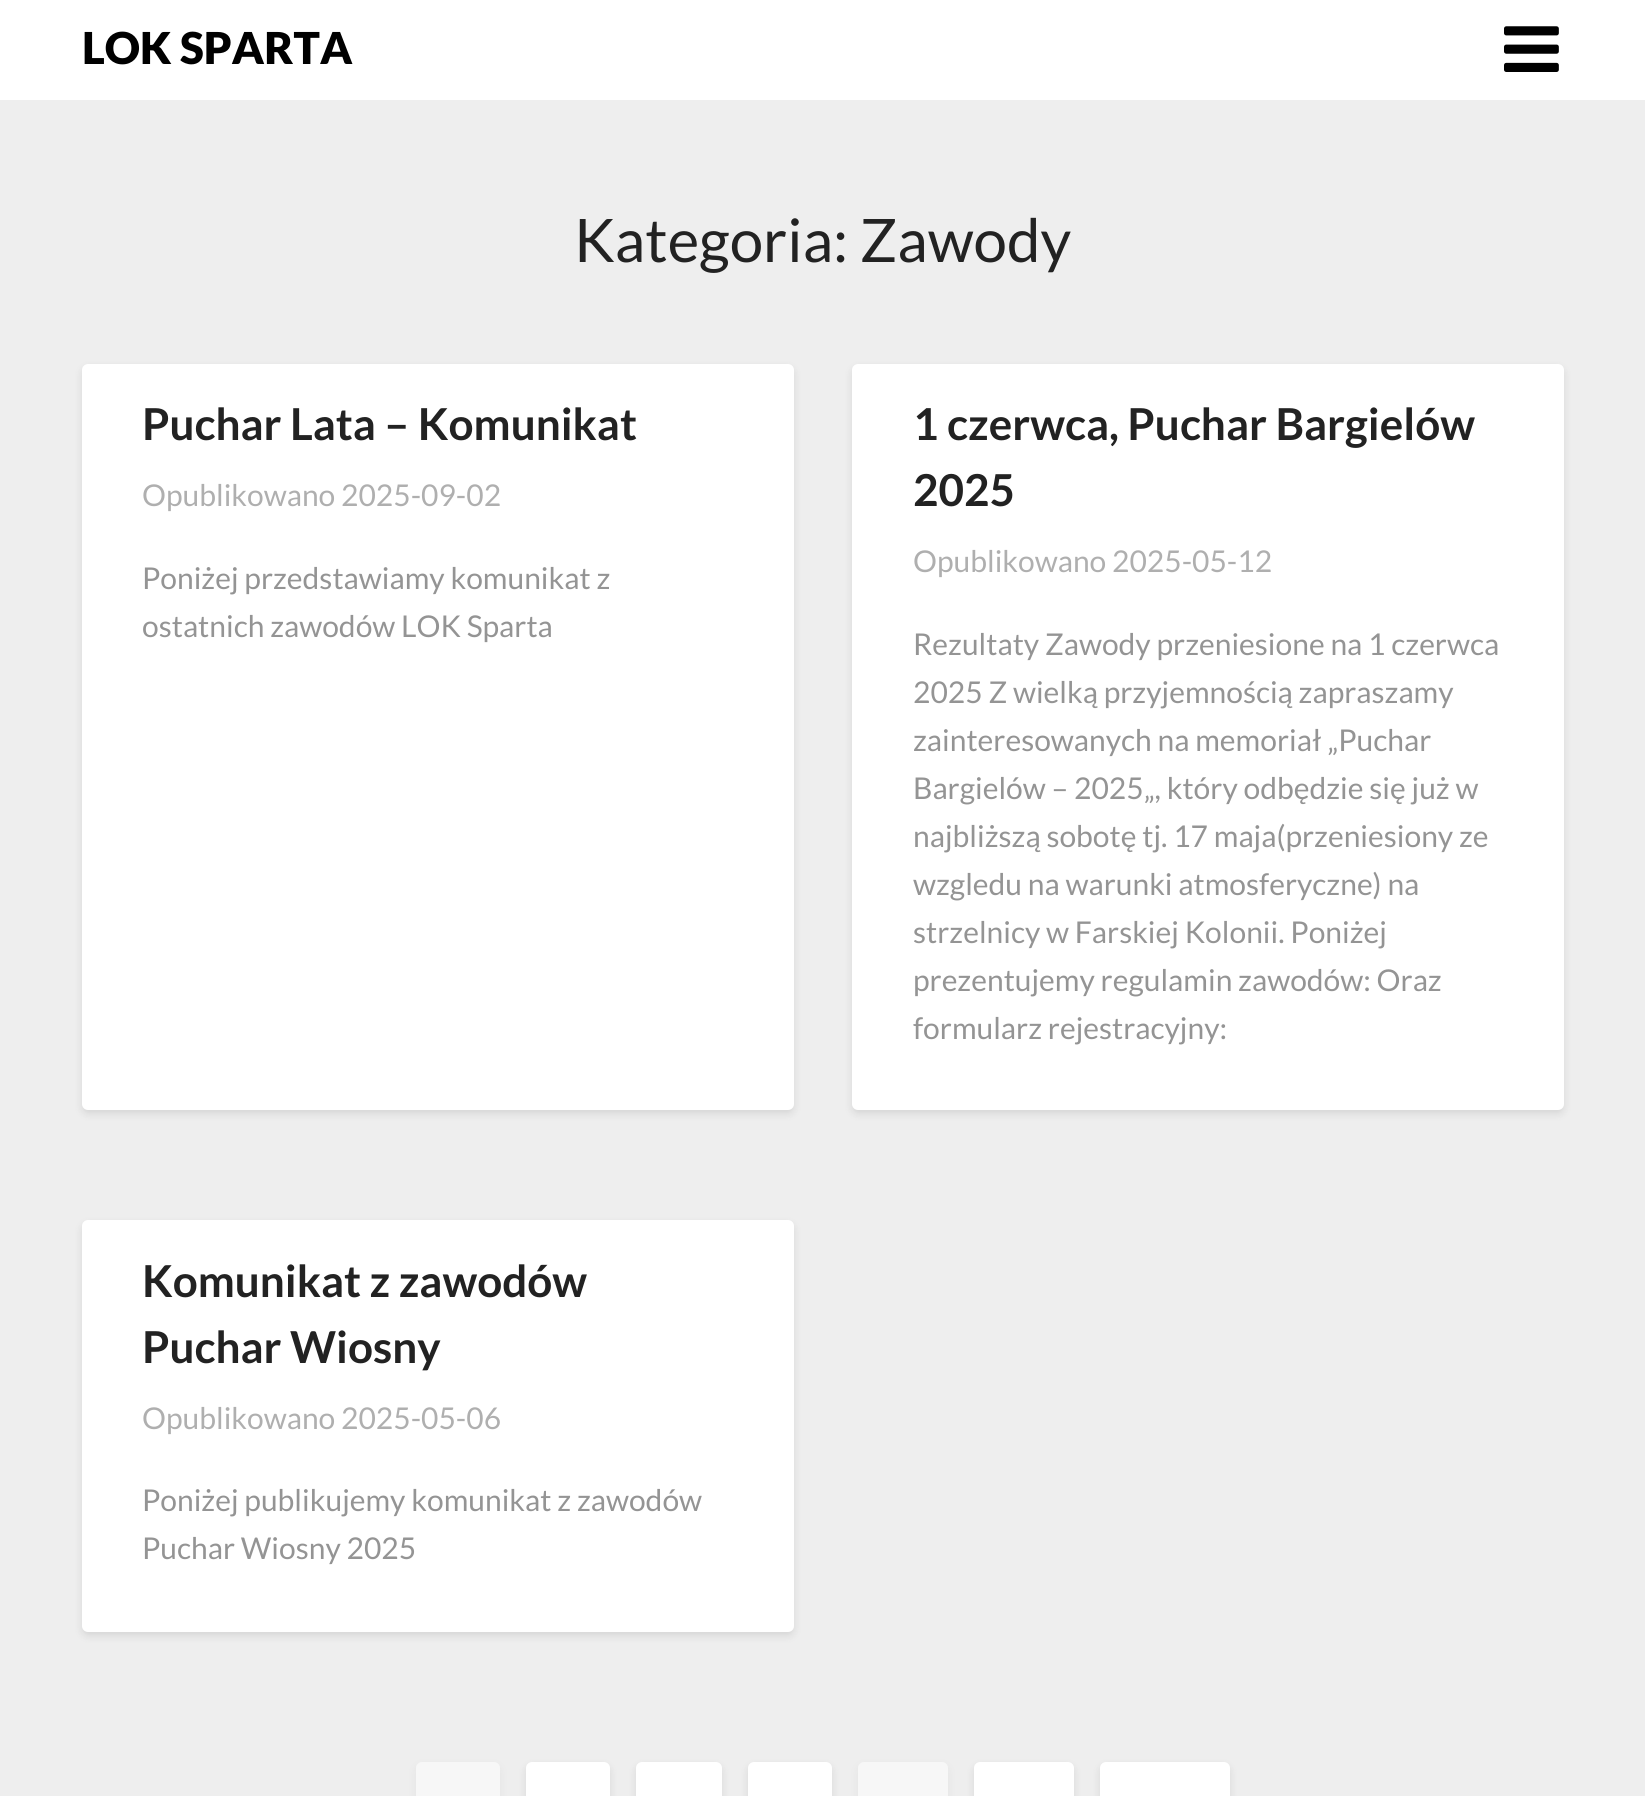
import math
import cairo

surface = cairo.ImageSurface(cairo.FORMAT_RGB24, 1645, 1796)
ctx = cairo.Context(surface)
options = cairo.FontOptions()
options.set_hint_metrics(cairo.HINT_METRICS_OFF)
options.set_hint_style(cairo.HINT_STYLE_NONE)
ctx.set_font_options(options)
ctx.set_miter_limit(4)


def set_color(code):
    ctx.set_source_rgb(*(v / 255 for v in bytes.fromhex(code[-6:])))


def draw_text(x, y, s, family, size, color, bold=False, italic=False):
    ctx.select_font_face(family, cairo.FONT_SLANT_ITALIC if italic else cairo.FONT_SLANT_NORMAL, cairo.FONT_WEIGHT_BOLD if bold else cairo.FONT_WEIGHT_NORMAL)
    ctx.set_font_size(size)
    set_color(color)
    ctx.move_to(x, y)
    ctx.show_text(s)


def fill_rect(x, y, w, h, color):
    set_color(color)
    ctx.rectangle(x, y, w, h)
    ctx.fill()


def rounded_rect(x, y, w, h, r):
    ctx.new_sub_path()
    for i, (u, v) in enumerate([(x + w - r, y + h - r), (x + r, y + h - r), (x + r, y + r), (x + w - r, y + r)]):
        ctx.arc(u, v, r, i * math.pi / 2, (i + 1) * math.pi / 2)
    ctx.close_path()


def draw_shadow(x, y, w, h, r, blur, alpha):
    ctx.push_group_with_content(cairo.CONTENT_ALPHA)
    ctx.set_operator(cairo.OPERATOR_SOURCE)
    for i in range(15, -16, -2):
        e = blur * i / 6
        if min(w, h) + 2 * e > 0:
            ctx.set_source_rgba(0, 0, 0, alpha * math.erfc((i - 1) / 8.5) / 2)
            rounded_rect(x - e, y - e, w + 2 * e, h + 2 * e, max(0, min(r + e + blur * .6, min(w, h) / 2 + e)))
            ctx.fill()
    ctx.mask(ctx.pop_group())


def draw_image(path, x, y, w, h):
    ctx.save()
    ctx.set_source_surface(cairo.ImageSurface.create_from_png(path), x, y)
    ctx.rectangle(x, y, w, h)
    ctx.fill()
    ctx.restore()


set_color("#eeeeee")
ctx.paint()
fill_rect(0, 0, 1645, 100, "#ffffff")
draw_text(82, 64, "LOK SPARTA", "Lato Black", 44, "#000000")
draw_image("assets/img1.png", 1504, 26, 55, 46)
draw_text(574, 262, "Kategoria: Zawody", "Lato", 60, "#222222")
set_color("#000000")
draw_shadow(82, 368, 712, 746, 6, 4, 0.1)
set_color("#ffffff")
rounded_rect(82, 364, 712, 746, 6)
ctx.fill()
draw_text(142, 440, "Puchar Lata – Komunikat", "Lato", 44, "#222222", bold=True)
draw_text(142, 506, "Opublikowano 2025-09-02", "Lato", 30, "#afafaf")
draw_text(142, 589, "Poniżej przedstawiamy komunikat z", "Lato", 30, "#949494")
draw_text(142, 637, "ostatnich zawodów LOK Sparta", "Lato", 30, "#949494")
set_color("#000000")
draw_shadow(852, 368, 712, 746, 6, 4, 0.1)
set_color("#ffffff")
rounded_rect(852, 364, 712, 746, 6)
ctx.fill()
draw_text(913, 440, "1 czerwca, Puchar Bargielów", "Lato", 44, "#222222", bold=True)
draw_text(913, 506, "2025", "Lato", 44, "#222222", bold=True)
draw_text(913, 572, "Opublikowano 2025-05-12", "Lato", 30, "#afafaf")
draw_text(913, 655, "Rezultaty Zawody przeniesione na 1 czerwca", "Lato", 30, "#949494")
draw_text(913, 703, "2025 Z wielką przyjemnością zapraszamy", "Lato", 30, "#949494")
draw_text(913, 751, "zainteresowanych na memoriał „Puchar", "Lato", 30, "#949494")
draw_text(913, 799, "Bargielów – 2025„, który odbędzie się już w", "Lato", 30, "#949494")
draw_text(913, 847, "najbliższą sobotę tj. 17 maja(przeniesiony ze", "Lato", 30, "#949494")
draw_text(913, 895, "wzgledu na warunki atmosferyczne) na", "Lato", 30, "#949494")
draw_text(913, 943, "strzelnicy w Farskiej Kolonii. Poniżej", "Lato", 30, "#949494")
draw_text(913, 991, "prezentujemy regulamin zawodów: Oraz", "Lato", 30, "#949494")
draw_text(913, 1039, "formularz rejestracyjny:", "Lato", 30, "#949494")
set_color("#000000")
draw_shadow(82, 1224, 712, 412, 6, 4, 0.1)
set_color("#ffffff")
rounded_rect(82, 1220, 712, 412, 6)
ctx.fill()
draw_text(142, 1297, "Komunikat z zawodów", "Lato", 44, "#222222", bold=True)
draw_text(142, 1363, "Puchar Wiosny", "Lato", 44, "#222222", bold=True)
draw_text(142, 1429, "Opublikowano 2025-05-06", "Lato", 30, "#afafaf")
draw_text(142, 1511, "Poniżej publikujemy komunikat z zawodów", "Lato", 30, "#949494")
draw_text(142, 1559, "Puchar Wiosny 2025", "Lato", 30, "#949494")
set_color("#777777")
draw_shadow(416, 1766, 84, 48, 6, 4, 0.1)
set_color("#f7f7f7")
rounded_rect(416, 1762, 84, 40, 6)
ctx.fill()
set_color("#000000")
draw_shadow(526, 1766, 84, 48, 6, 4, 0.1)
set_color("#ffffff")
rounded_rect(526, 1762, 84, 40, 6)
ctx.fill()
set_color("#000000")
draw_shadow(636, 1766, 86, 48, 6, 4, 0.1)
set_color("#ffffff")
rounded_rect(636, 1762, 86, 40, 6)
ctx.fill()
set_color("#000000")
draw_shadow(748, 1766, 84, 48, 6, 4, 0.1)
set_color("#ffffff")
rounded_rect(748, 1762, 84, 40, 6)
ctx.fill()
set_color("#777777")
draw_shadow(858, 1766, 90, 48, 6, 4, 0.1)
set_color("#f7f7f7")
rounded_rect(858, 1762, 90, 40, 6)
ctx.fill()
set_color("#000000")
draw_shadow(974, 1766, 100, 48, 6, 4, 0.1)
set_color("#ffffff")
rounded_rect(974, 1762, 100, 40, 6)
ctx.fill()
set_color("#000000")
draw_shadow(1100, 1766, 130, 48, 6, 4, 0.1)
set_color("#ffffff")
rounded_rect(1100, 1762, 130, 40, 6)
ctx.fill()
surface.write_to_png("output.png")
